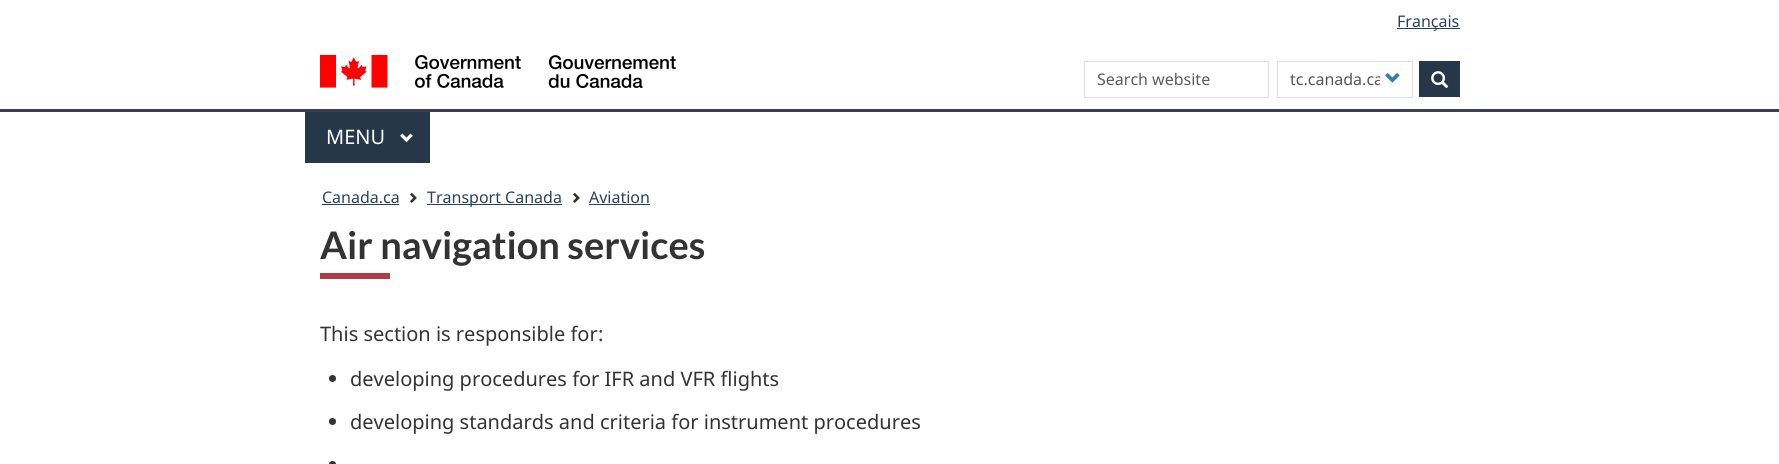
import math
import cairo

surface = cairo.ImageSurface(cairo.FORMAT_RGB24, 1779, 464)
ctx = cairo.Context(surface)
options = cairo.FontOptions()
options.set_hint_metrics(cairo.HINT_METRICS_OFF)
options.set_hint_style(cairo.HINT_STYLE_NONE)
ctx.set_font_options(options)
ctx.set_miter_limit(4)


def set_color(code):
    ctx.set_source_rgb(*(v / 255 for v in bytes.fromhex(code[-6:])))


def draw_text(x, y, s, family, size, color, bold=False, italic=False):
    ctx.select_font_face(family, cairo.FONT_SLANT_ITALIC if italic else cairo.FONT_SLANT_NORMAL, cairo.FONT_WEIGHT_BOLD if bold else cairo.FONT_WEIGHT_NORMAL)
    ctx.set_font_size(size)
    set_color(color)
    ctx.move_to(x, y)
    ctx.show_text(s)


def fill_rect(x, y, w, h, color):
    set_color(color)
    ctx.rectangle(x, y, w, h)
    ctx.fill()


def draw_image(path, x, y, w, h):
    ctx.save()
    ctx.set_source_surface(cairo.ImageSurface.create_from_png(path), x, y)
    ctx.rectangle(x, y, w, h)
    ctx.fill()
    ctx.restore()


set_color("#ffffff")
ctx.paint()
fill_rect(1397, 28, 63, 1, "#284162")
draw_text(1397, 27, "Français", "Noto Sans", 16, "#284162")
draw_image("assets/img1.png", 320, 55, 356, 33)
ctx.rectangle(1084.5, 61.5, 184, 36)
set_color("#e0e0e0")
ctx.set_line_width(1)
ctx.stroke()
draw_text(1097, 85, "Search website", "Noto Sans", 16, "#5c5c5c")
ctx.rectangle(1277.5, 61.5, 135, 36)
set_color("#e0e0e0")
ctx.stroke()
ctx.save()
ctx.rectangle(1290, 68, 90, 23)
ctx.clip()
draw_text(1290, 85, "tc.canada.ca", "Noto Sans", 16, "#555555")
ctx.restore()
draw_image("assets/img2.png", 1385, 72, 15, 11)
fill_rect(1419, 61, 41, 36, "#26374a")
draw_image("assets/img3.png", 1431, 71, 18, 18)
fill_rect(0, 109, 1779, 3, "#38414d")
fill_rect(305, 112, 125, 51, "#26374a")
draw_text(326, 144, "MENU", "Noto Sans", 20, "#ffffff")
draw_image("assets/img4.png", 400, 133, 13, 10)
draw_text(322, 203, "Canada.ca", "Noto Sans", 16, "#284162")
fill_rect(322, 204, 77, 1, "#284162")
draw_image("assets/img5.png", 410, 192, 7, 11)
fill_rect(427, 204, 135, 1, "#284162")
draw_text(427, 203, "Transport Canada", "Noto Sans", 16, "#284162")
draw_image("assets/img5.png", 573, 192, 7, 11)
draw_text(589, 203, "Aviation", "Noto Sans", 16, "#284162")
fill_rect(589, 204, 61, 1, "#284162")
draw_text(320, 259, "Air navigation services", "Lato", 38, "#333333", bold=True)
fill_rect(320, 273, 70, 6, "#af3c43")
draw_text(320, 341, "This section is responsible for:", "Noto Sans", 20, "#333333")
ctx.new_path()
ctx.arc(332.5, 378.5, 3.5, 0, 2 * math.pi)
ctx.fill()
draw_text(350, 386, "developing procedures for IFR and VFR flights", "Noto Sans", 20, "#333333")
ctx.new_path()
ctx.arc(332.5, 421.5, 3.5, 0, 2 * math.pi)
ctx.fill()
draw_text(350, 429, "developing standards and criteria for instrument procedures", "Noto Sans", 20, "#333333")
ctx.new_path()
ctx.arc(332.5, 464.5, 3.5, 0, 2 * math.pi)
ctx.fill()
surface.write_to_png("output.png")
